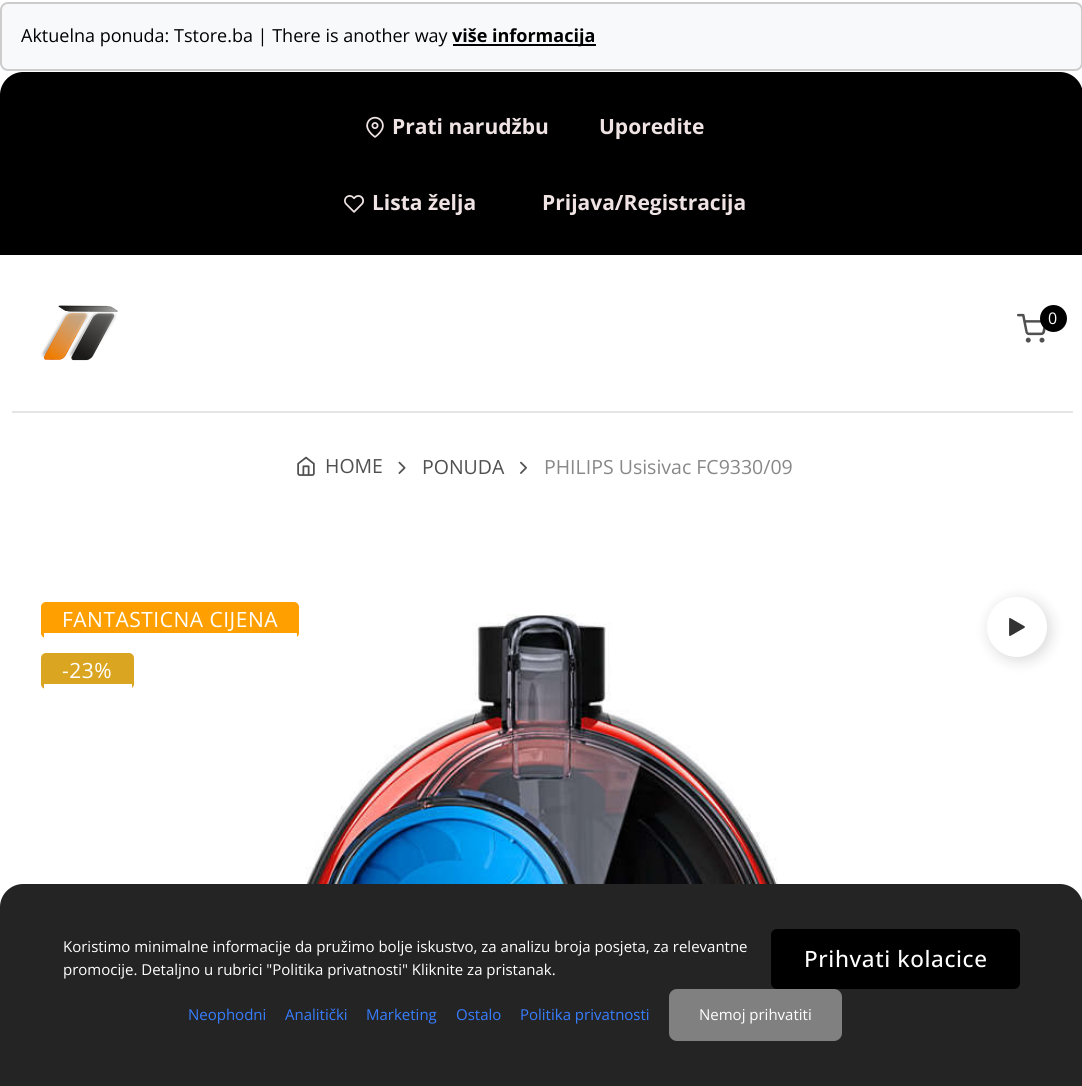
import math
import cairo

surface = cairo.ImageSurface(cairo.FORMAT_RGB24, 1082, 1086)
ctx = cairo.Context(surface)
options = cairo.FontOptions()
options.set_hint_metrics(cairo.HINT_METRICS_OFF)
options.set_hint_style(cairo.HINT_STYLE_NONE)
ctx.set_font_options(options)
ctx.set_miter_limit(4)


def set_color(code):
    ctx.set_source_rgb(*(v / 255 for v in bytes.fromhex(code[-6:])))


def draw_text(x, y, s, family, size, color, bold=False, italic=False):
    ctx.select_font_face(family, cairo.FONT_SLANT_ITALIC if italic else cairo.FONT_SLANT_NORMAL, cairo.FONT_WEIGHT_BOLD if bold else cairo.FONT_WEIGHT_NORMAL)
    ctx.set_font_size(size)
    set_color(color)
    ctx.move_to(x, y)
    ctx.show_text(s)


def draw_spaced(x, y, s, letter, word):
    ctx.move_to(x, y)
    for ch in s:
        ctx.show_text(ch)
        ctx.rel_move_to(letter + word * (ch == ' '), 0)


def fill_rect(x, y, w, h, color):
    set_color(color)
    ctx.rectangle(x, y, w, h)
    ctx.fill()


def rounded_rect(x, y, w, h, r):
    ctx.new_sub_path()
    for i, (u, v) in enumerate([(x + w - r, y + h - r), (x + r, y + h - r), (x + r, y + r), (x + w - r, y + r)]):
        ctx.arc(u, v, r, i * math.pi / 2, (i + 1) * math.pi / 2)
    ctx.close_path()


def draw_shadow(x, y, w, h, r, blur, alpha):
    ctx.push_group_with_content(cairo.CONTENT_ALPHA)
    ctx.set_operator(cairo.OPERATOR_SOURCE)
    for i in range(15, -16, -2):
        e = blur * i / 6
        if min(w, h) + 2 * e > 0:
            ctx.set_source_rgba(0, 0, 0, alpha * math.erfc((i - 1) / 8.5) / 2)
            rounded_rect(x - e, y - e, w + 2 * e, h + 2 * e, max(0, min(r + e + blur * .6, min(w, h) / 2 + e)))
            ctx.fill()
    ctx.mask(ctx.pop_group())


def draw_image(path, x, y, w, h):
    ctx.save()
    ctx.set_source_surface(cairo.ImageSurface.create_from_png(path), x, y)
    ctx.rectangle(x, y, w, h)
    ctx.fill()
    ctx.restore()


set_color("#ffffff")
ctx.paint()
set_color("#f8f9fa")
rounded_rect(1, 3, 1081, 67, 7)
ctx.fill_preserve()
set_color("#cccccc")
ctx.stroke()
draw_text(21, 42, "Aktuelna ponuda: Tstore.ba | There is another way", "Open Sans", 18, "#000000")
fill_rect(453, 44, 143, 2, "#000000")
draw_text(452, 42, "više informacija", "Open Sans", 18, "#000000", bold=True)
ctx.new_path()
ctx.move_to(23, 72)
ctx.line_to(1060, 72)
ctx.curve_to(1072.5, 72, 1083, 82.5, 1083, 95)
ctx.line_to(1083, 255)
ctx.line_to(0, 255)
ctx.line_to(0, 95)
ctx.curve_to(0, 82.5, 10.5, 72, 23, 72)
ctx.close_path()
ctx.fill()
draw_image("assets/img1.png", 366, 116, 18, 22)
draw_text(392, 134, "Prati narudžbu", "Open Sans", 21, "#efe3e3", bold=True)
draw_text(599, 134, "Uporedite", "Open Sans", 21, "#efe3e3", bold=True)
draw_image("assets/img2.png", 344, 195, 20, 18)
draw_text(372, 210, "Lista želja", "Open Sans", 21, "#efe3e3", bold=True)
draw_text(542, 210, "Prijava/Registracija", "Open Sans", 21, "#efe3e3", bold=True)
draw_image("assets/img3.png", 41, 305, 77, 56)
draw_image("assets/img4.png", 1017, 313, 29, 30)
set_color("#000000")
ctx.arc(1053.5, 318.5, 13.5, 0, 2 * math.pi)
ctx.fill()
draw_text(1048, 324, "0", "Open Sans", 16, "#ffffff")
fill_rect(12, 411, 1061, 2, "#e5e5e5")
draw_image("assets/img5.png", 297, 456, 18, 20)
draw_text(325, 473, "HOME", "Open Sans", 19.5, "#505050")
draw_image("assets/img6.png", 398, 461, 8, 13)
draw_text(422, 474, "PONUDA", "Open Sans", 19.5, "#505050")
draw_image("assets/img7.png", 520, 461, 7, 13)
draw_text(544, 474, "PHILIPS Usisivac FC9330/09", "Open Sans", 19.5, "#888888")
draw_image("assets/img8.png", 247, 614, 585, 270)
set_color("#ffa000")
rounded_rect(41, 602, 258, 36, 5)
ctx.fill()
fill_rect(44, 633, 253, 5, "#ffffff")
ctx.set_font_size(21)
draw_spaced(62, 627, "FANTASTICNA CIJENA", 0.5, 0)
set_color("#000000")
draw_shadow(990, 600, 60, 60, 30, 7.5, 0.15)
set_color("#ffffff")
ctx.arc(1017, 627, 30, 0, 2 * math.pi)
ctx.fill()
draw_image("assets/img9.png", 1009, 618, 16, 18)
set_color("#daa520")
rounded_rect(41, 653, 93, 36, 5)
ctx.fill()
fill_rect(44, 684, 88, 5, "#ffffff")
draw_spaced(62, 678, "-23%", 0.5, 0)
set_color("#242424")
ctx.new_path()
ctx.move_to(23, 884)
ctx.line_to(1060, 884)
ctx.curve_to(1072.5, 884, 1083, 894.5, 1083, 907)
ctx.line_to(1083, 1086)
ctx.line_to(0, 1086)
ctx.line_to(0, 907)
ctx.curve_to(0, 894.5, 10.5, 884, 23, 884)
ctx.close_path()
ctx.fill()
draw_text(63, 952, "Koristimo minimalne informacije da pružimo bolje iskustvo, za analizu broja posjeta, za relevantne", "Open Sans", 15, "#ffffff")
draw_text(63, 975, "promocije. Detaljno u rubrici \"Politika privatnosti\" Kliknite za pristanak.", "Open Sans", 15, "#ffffff")
set_color("#000000")
rounded_rect(771, 929, 249, 60, 6)
ctx.fill()
ctx.select_font_face("Open Sans Medium")
ctx.set_font_size(22.5)
set_color("#ffffff")
draw_spaced(804, 967, "Prihvati kolacice", 0.6, 0)
draw_text(188, 1020, "Neophodni", "Open Sans", 15, "#377dff")
draw_text(285, 1020, "Analitički", "Open Sans", 15, "#377dff")
draw_text(366, 1020, "Marketing", "Open Sans", 15, "#377dff")
draw_text(456, 1020, "Ostalo", "Open Sans", 15, "#377dff")
draw_text(520, 1020, "Politika privatnosti", "Open Sans", 15, "#377dff")
set_color("#808080")
rounded_rect(669, 989, 173, 52, 8)
ctx.fill()
draw_text(699, 1020, "Nemoj prihvatiti", "Open Sans", 15, "#ffffff")
surface.write_to_png("output.png")
